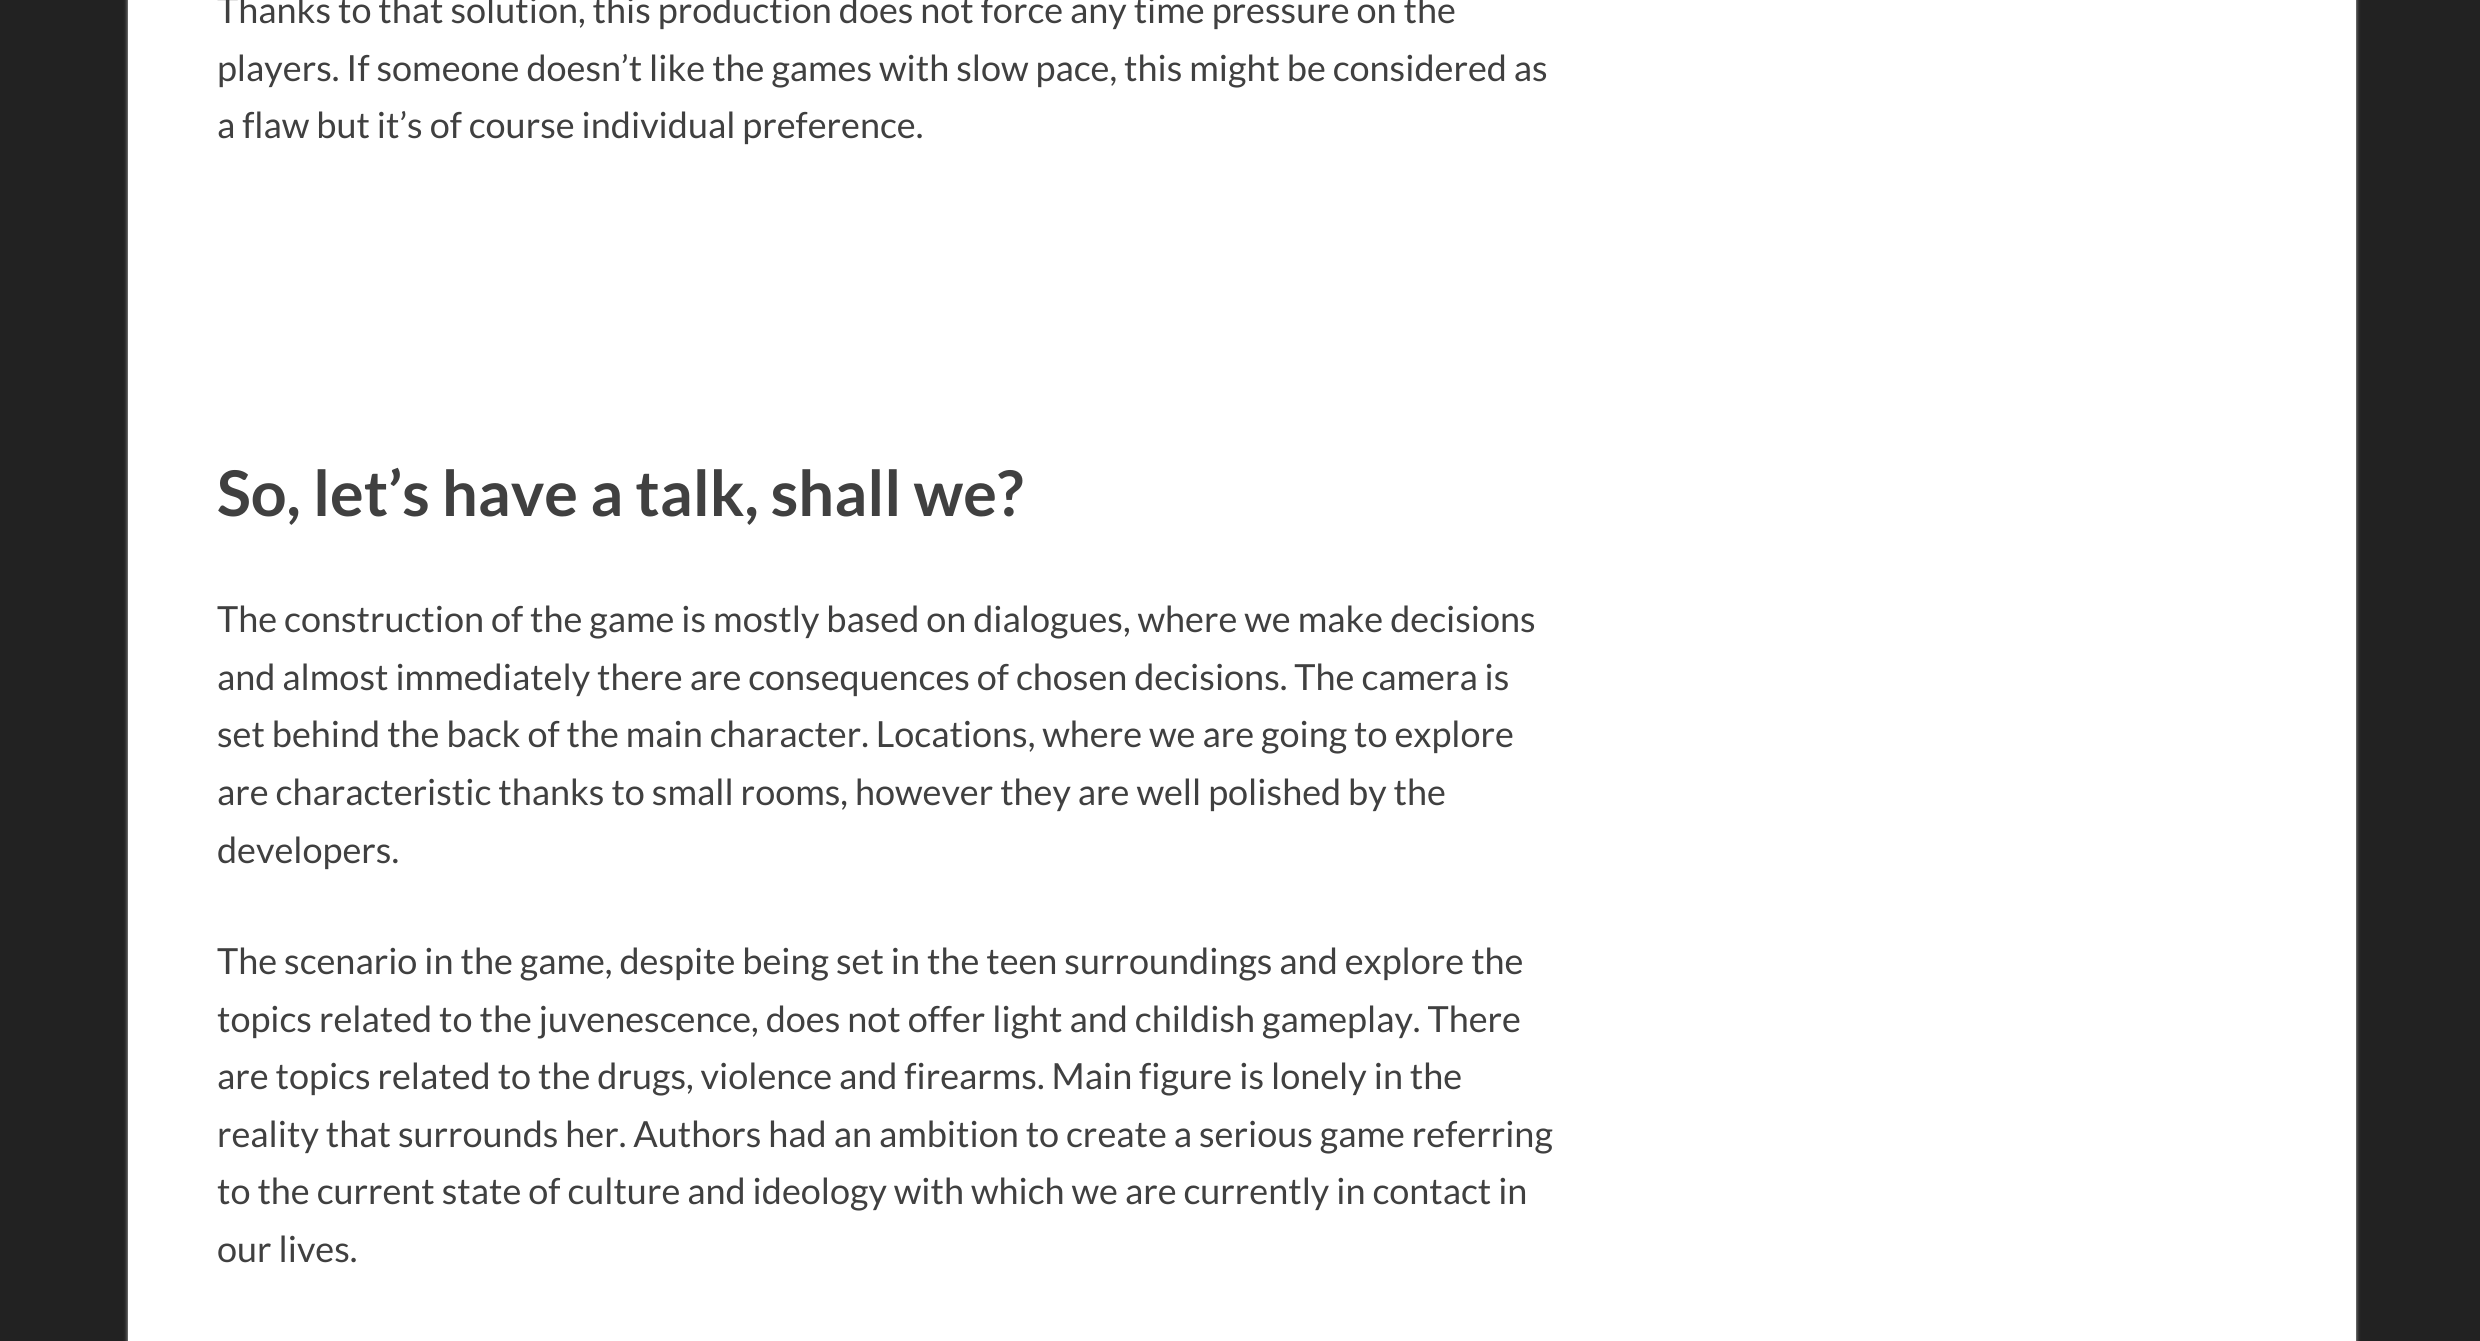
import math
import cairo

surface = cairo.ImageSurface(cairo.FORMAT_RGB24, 2480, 1341)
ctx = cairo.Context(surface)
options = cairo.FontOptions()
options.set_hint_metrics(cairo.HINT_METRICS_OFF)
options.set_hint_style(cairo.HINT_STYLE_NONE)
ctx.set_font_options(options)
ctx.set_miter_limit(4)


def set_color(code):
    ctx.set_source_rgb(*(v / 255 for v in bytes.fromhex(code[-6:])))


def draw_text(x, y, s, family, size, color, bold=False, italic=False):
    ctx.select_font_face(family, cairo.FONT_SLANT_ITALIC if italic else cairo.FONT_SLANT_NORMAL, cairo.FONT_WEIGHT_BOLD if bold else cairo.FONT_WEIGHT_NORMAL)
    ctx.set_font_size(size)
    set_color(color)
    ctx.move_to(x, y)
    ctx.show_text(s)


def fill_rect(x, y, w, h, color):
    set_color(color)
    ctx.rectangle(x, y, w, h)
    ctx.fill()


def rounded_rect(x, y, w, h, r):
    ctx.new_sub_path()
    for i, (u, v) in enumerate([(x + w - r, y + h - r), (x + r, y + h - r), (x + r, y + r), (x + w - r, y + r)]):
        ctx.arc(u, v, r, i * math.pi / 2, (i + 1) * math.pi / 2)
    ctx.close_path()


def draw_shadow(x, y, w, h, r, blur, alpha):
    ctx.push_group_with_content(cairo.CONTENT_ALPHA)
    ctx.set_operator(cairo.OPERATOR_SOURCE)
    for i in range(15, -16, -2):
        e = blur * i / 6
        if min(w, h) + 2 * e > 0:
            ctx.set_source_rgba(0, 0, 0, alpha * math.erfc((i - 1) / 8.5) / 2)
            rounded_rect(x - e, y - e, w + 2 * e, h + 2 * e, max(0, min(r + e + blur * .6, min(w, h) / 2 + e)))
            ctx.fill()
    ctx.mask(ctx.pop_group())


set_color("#222222")
ctx.paint()
set_color("#bbbbbb")
draw_shadow(128, -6, 2228, 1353, 0, 2, 1)
fill_rect(128, 0, 2228, 1341, "#ffffff")
draw_text(217, 23, "Thanks to that solution, this production does not force any time pressure on the", "Lato", 36, "#404040")
draw_text(217, 81, "players. If someone doesn’t like the games with slow pace, this might be considered as", "Lato", 36, "#404040")
draw_text(217, 138, "a flaw but it’s of course individual preference.", "Lato", 36, "#404040")
draw_text(217, 516, "So, let’s have a talk, shall we?", "Lato", 63, "#404040", bold=True)
draw_text(217, 632, "The construction of the game is mostly based on dialogues, where we make decisions", "Lato", 36, "#404040")
draw_text(217, 690, "and almost immediately there are consequences of chosen decisions. The camera is", "Lato", 36, "#404040")
draw_text(217, 747, "set behind the back of the main character. Locations, where we are going to explore", "Lato", 36, "#404040")
draw_text(217, 805, "are characteristic thanks to small rooms, however they are well polished by the", "Lato", 36, "#404040")
draw_text(217, 863, "developers.", "Lato", 36, "#404040")
draw_text(217, 974, "The scenario in the game, despite being set in the teen surroundings and explore the", "Lato", 36, "#404040")
draw_text(217, 1032, "topics related to the juvenescence, does not offer light and childish gameplay. There", "Lato", 36, "#404040")
draw_text(217, 1089, "are topics related to the drugs, violence and firearms. Main figure is lonely in the", "Lato", 36, "#404040")
draw_text(217, 1147, "reality that surrounds her. Authors had an ambition to create a serious game referring", "Lato", 36, "#404040")
draw_text(217, 1204, "to the current state of culture and ideology with which we are currently in contact in", "Lato", 36, "#404040")
draw_text(217, 1262, "our lives.", "Lato", 36, "#404040")
surface.write_to_png("output.png")
